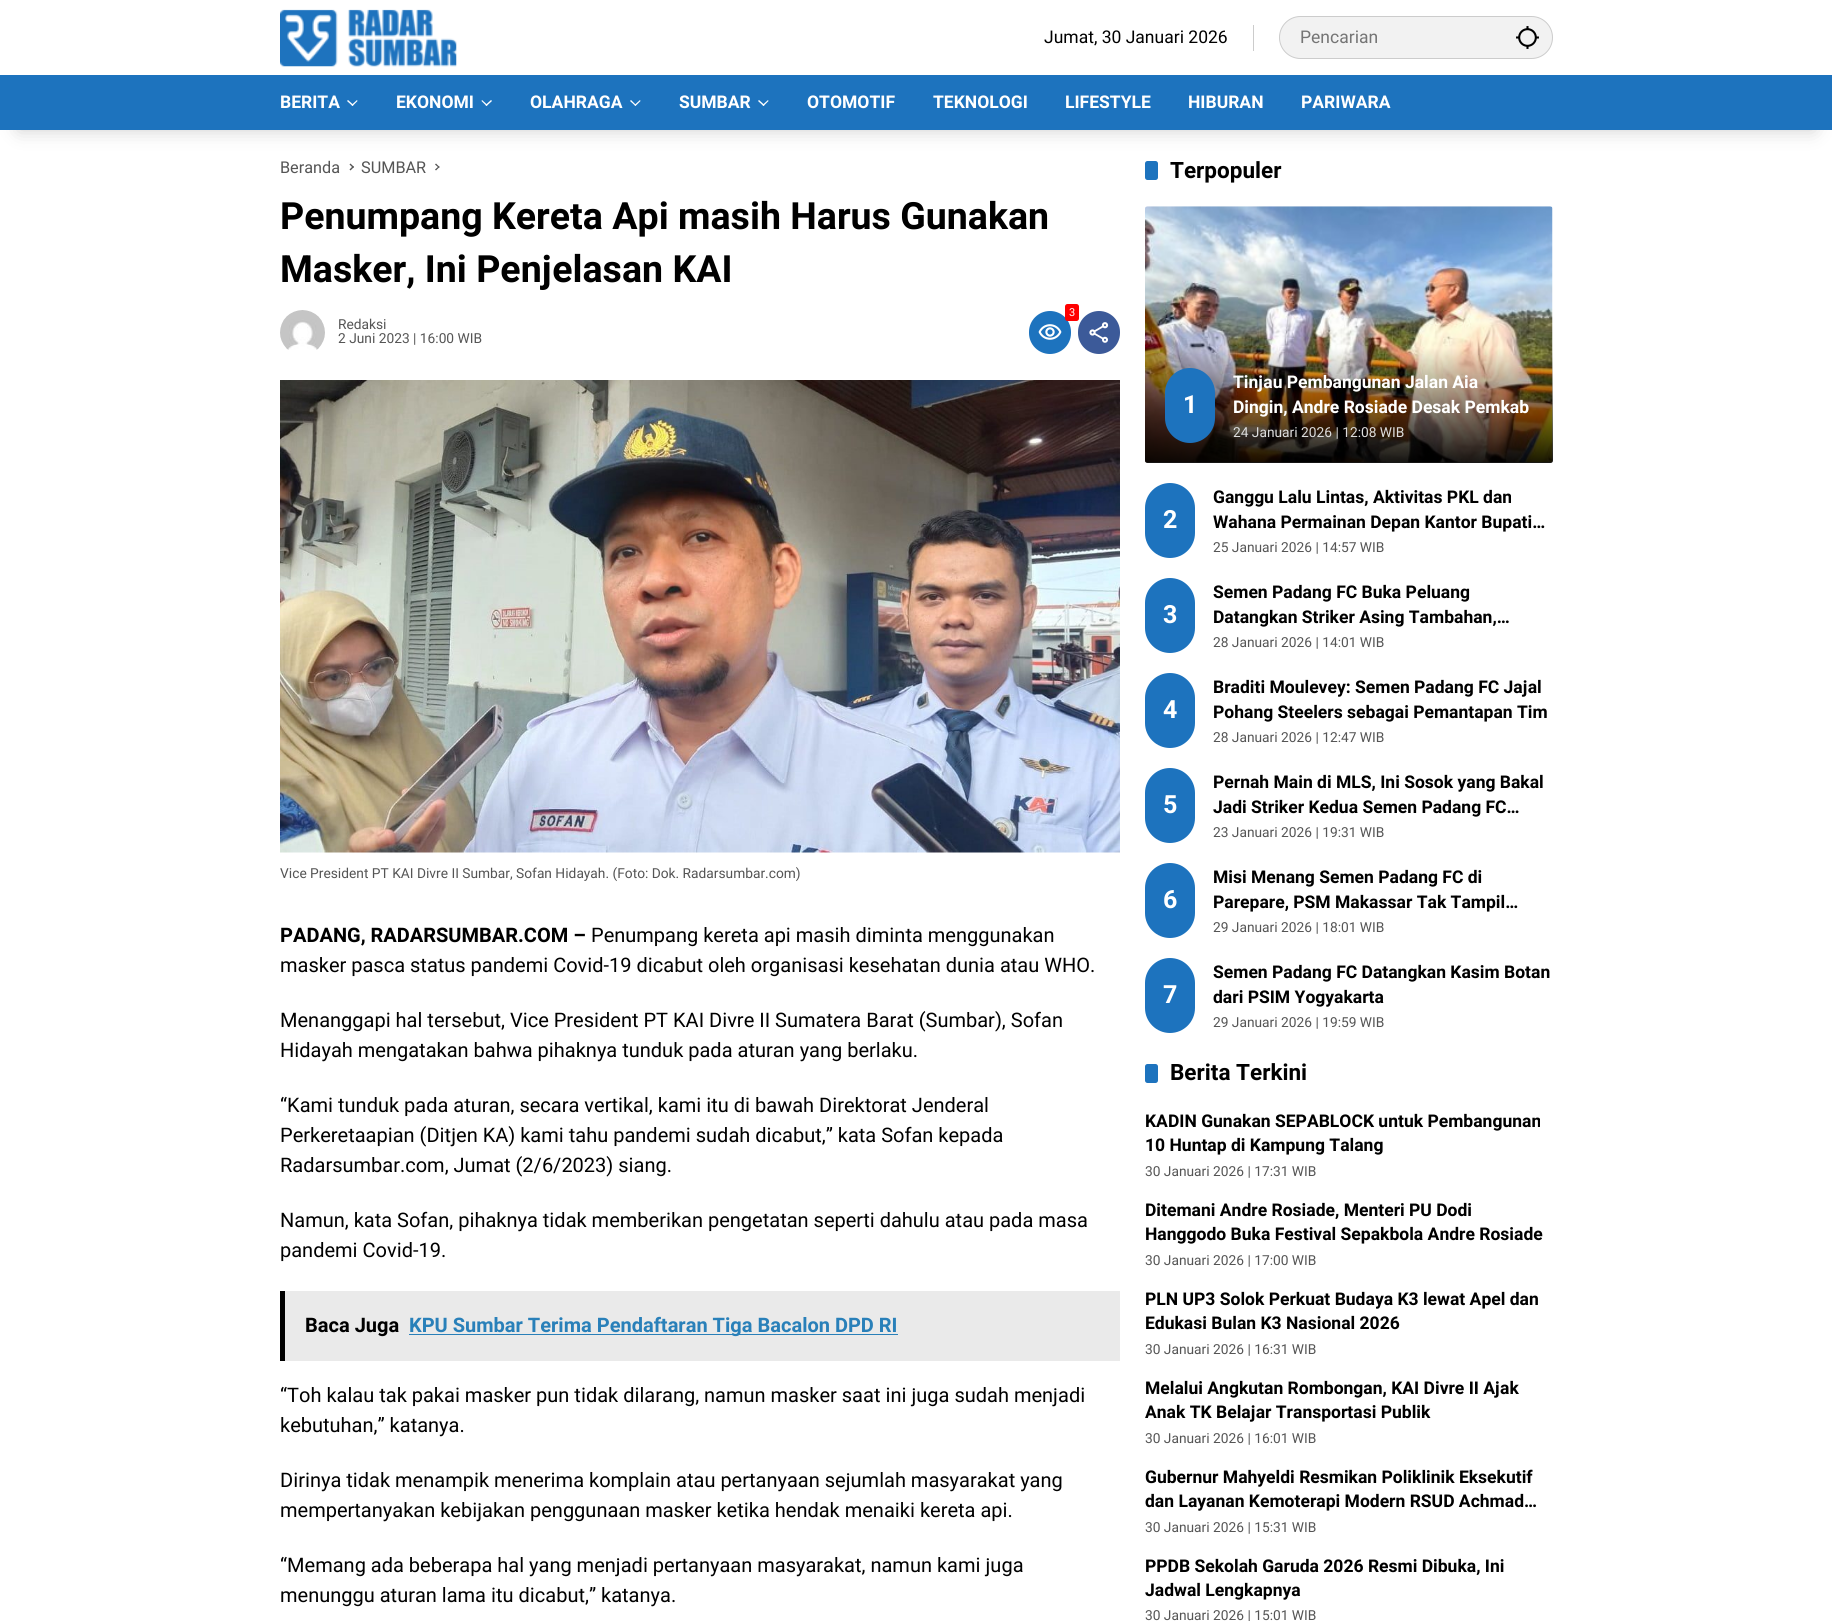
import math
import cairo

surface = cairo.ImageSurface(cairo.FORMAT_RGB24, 1832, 1621)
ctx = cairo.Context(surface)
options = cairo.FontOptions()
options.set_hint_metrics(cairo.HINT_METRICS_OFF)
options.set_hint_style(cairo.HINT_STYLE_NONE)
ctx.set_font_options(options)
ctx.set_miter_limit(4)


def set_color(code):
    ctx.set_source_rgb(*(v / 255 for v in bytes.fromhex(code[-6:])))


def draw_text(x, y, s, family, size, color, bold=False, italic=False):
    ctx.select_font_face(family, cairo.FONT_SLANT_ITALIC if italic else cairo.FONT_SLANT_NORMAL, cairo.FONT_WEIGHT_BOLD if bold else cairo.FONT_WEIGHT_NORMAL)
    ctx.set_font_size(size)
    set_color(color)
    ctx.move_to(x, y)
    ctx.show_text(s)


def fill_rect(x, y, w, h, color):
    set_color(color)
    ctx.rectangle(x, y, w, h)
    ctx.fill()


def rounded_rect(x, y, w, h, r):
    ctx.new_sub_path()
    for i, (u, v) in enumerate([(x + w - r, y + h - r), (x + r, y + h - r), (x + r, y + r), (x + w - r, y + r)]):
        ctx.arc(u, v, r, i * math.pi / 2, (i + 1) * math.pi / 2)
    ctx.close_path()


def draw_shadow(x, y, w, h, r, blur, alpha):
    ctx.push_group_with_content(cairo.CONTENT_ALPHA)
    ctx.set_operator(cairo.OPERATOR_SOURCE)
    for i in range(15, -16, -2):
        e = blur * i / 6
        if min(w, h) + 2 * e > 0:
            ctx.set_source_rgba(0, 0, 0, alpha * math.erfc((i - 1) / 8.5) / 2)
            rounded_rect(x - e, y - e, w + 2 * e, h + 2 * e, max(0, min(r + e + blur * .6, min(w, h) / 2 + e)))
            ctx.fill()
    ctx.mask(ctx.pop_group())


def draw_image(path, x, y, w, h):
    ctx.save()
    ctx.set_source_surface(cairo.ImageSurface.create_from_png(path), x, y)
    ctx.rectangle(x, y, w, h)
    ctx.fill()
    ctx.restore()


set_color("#ffffff")
ctx.paint()
draw_image("assets/img1.png", 280, 9, 177, 58)
fill_rect(1253, 25, 1, 26, "#cccccc")
draw_text(1044, 43, "Jumat, 30 Januari 2026", "Heebo", 17.5, "#000000")
set_color("#f2f2f2")
rounded_rect(1279.5, 16.5, 273, 42, 21)
ctx.fill_preserve()
set_color("#cccccc")
ctx.set_line_width(1)
ctx.stroke()
draw_text(1300, 43, "Pencarian", "Heebo", 17.5, "#757575")
draw_image("assets/img2.png", 1516, 26, 23, 23)
set_color("#000000")
draw_shadow(19, 113, 1795, 17, 0, 9.5, 0.2)
fill_rect(0, 75, 1832, 55, "#1d73be")
draw_text(280, 108, "BERITA", "Heebo", 17.5, "#ffffff", bold=True)
ctx.new_path()
ctx.move_to(357, 100)
ctx.line_to(357.5, 101)
ctx.line_to(352.5, 106)
ctx.line_to(351.5, 105)
ctx.close_path()
ctx.fill()
ctx.new_path()
ctx.move_to(348, 100)
ctx.line_to(353.5, 105)
ctx.line_to(352.5, 106)
ctx.line_to(347, 101)
ctx.close_path()
ctx.fill()
draw_text(396, 108, "EKONOMI", "Heebo", 17.5, "#ffffff", bold=True)
ctx.new_path()
ctx.move_to(491, 100)
ctx.line_to(492, 101)
ctx.line_to(486.5, 106)
ctx.line_to(485.5, 105)
ctx.close_path()
ctx.fill()
ctx.new_path()
ctx.move_to(482, 100)
ctx.line_to(487.5, 105)
ctx.line_to(486.5, 106)
ctx.line_to(481.5, 101)
ctx.close_path()
ctx.fill()
draw_text(530, 108, "OLAHRAGA", "Heebo", 17.5, "#ffffff", bold=True)
ctx.new_path()
ctx.move_to(640, 100)
ctx.line_to(640.5, 101)
ctx.line_to(635.5, 106)
ctx.line_to(634.5, 105)
ctx.close_path()
ctx.fill()
ctx.new_path()
ctx.move_to(631, 100)
ctx.line_to(636, 105)
ctx.line_to(635.5, 106)
ctx.line_to(630, 101)
ctx.close_path()
ctx.fill()
draw_text(679, 108, "SUMBAR", "Heebo", 17.5, "#ffffff", bold=True)
ctx.new_path()
ctx.move_to(768, 100)
ctx.line_to(768.5, 101)
ctx.line_to(763.5, 106)
ctx.line_to(762.5, 105)
ctx.close_path()
ctx.fill()
ctx.new_path()
ctx.move_to(759, 100)
ctx.line_to(764.5, 105)
ctx.line_to(763.5, 106)
ctx.line_to(758, 101)
ctx.close_path()
ctx.fill()
draw_text(807, 108, "OTOMOTIF", "Heebo", 17.5, "#ffffff", bold=True)
draw_text(933, 108, "TEKNOLOGI", "Heebo", 17.5, "#ffffff", bold=True)
draw_text(1065, 108, "LIFESTYLE", "Heebo", 17.5, "#ffffff", bold=True)
draw_text(1188, 108, "HIBURAN", "Heebo", 17.5, "#ffffff", bold=True)
draw_text(1301, 108, "PARIWARA", "Heebo", 17.5, "#ffffff", bold=True)
draw_text(280, 173, "Beranda", "Heebo", 16.25, "#555555")
ctx.new_path()
ctx.move_to(349.5, 164.5)
ctx.line_to(350.5, 163.5)
ctx.line_to(354, 167)
ctx.line_to(353, 168)
ctx.close_path()
ctx.fill()
ctx.new_path()
ctx.move_to(349.5, 169.5)
ctx.line_to(353, 166)
ctx.line_to(354, 167)
ctx.line_to(350.5, 170.5)
ctx.close_path()
ctx.fill()
draw_text(361, 173, "SUMBAR", "Heebo", 16.25, "#555555")
ctx.new_path()
ctx.move_to(435, 164.5)
ctx.line_to(436, 163.5)
ctx.line_to(439.5, 167)
ctx.line_to(439, 168)
ctx.close_path()
ctx.fill()
ctx.new_path()
ctx.move_to(435, 169.5)
ctx.line_to(439, 166)
ctx.line_to(439.5, 167)
ctx.line_to(436, 170.5)
ctx.close_path()
ctx.fill()
draw_text(280, 229, "Penumpang Kereta Api masih Harus Gunakan", "Heebo", 37.5, "#000000", bold=True)
draw_text(280, 282, "Masker, Ini Penjelasan KAI", "Heebo", 37.5, "#000000", bold=True)
draw_image("assets/img3.png", 280, 310, 45, 40)
draw_text(338, 329, "Redaksi", "Heebo", 13.75, "#555555")
draw_text(338, 343, "2 Juni 2023 | 16:00 WIB", "Heebo", 13.75, "#555555")
set_color("#1d73be")
rounded_rect(1029, 311, 42, 43, 21)
ctx.fill()
set_color("#ff0000")
rounded_rect(1065, 304, 14, 17, 2.5)
ctx.fill()
draw_text(1069, 316, "3", "Heebo", 11, "#ffffff")
draw_image("assets/img4.png", 1038, 324, 24, 16)
set_color("#3c5a99")
rounded_rect(1078, 311, 42, 43, 21)
ctx.fill()
draw_image("assets/img5.png", 1089, 322, 20, 21)
draw_image("assets/img6.png", 280, 380, 840, 473)
draw_text(280, 878, "Vice President PT KAI Divre II Sumbar, Sofan Hidayah. (Foto: Dok. Radarsumbar.com)", "Heebo", 13.75, "#555555")
draw_text(280, 942, "PADANG, RADARSUMBAR.COM –", "Heebo", 20, "#000000", bold=True)
draw_text(591, 942, "Penumpang kereta api masih diminta menggunakan", "Heebo", 20, "#000000")
draw_text(280, 972, "masker pasca status pandemi Covid-19 dicabut oleh organisasi kesehatan dunia atau WHO.", "Heebo", 20, "#000000")
draw_text(280, 1027, "Menanggapi hal tersebut, Vice President PT KAI Divre II Sumatera Barat (Sumbar), Sofan", "Heebo", 20, "#000000")
draw_text(280, 1057, "Hidayah mengatakan bahwa pihaknya tunduk pada aturan yang berlaku.", "Heebo", 20, "#000000")
draw_text(280, 1112, "“Kami tunduk pada aturan, secara vertikal, kami itu di bawah Direktorat Jenderal", "Heebo", 20, "#000000")
draw_text(280, 1142, "Perkeretaapian (Ditjen KA) kami tahu pandemi sudah dicabut,” kata Sofan kepada", "Heebo", 20, "#000000")
draw_text(280, 1172, "Radarsumbar.com, Jumat (2/6/2023) siang.", "Heebo", 20, "#000000")
draw_text(280, 1227, "Namun, kata Sofan, pihaknya tidak memberikan pengetatan seperti dahulu atau pada masa", "Heebo", 20, "#000000")
draw_text(280, 1257, "pandemi Covid-19.", "Heebo", 20, "#000000")
fill_rect(285, 1291, 835, 70, "#eaeaea")
fill_rect(280, 1291, 5, 70, "#000000")
draw_text(305, 1332, "Baca Juga", "Heebo", 20, "#000000", bold=True)
fill_rect(409, 1334, 489, 1, "#2980b9")
draw_text(409, 1332, "KPU Sumbar Terima Pendaftaran Tiga Bacalon DPD RI", "Heebo", 20, "#2980b9", bold=True)
draw_text(280, 1402, "“Toh kalau tak pakai masker pun tidak dilarang, namun masker saat ini juga sudah menjadi", "Heebo", 20, "#000000")
draw_text(280, 1432, "kebutuhan,” katanya.", "Heebo", 20, "#000000")
draw_text(280, 1487, "Dirinya tidak menampik menerima komplain atau pertanyaan sejumlah masyarakat yang", "Heebo", 20, "#000000")
draw_text(280, 1517, "mempertanyakan kebijakan penggunaan masker ketika hendak menaiki kereta api.", "Heebo", 20, "#000000")
draw_text(280, 1572, "“Memang ada beberapa hal yang menjadi pertanyaan masyarakat, namun kami juga", "Heebo", 20, "#000000")
draw_text(280, 1602, "menunggu aturan lama itu dicabut,” katanya.", "Heebo", 20, "#000000")
set_color("#1d73be")
rounded_rect(1145, 161, 13, 19, 2.5)
ctx.fill()
draw_text(1170, 178, "Terpopuler", "Heebo", 22.5, "#000000", bold=True)
draw_image("assets/img7.png", 1145, 206, 408, 257)
gradient = cairo.LinearGradient(1349, 463, 1349, 348)
gradient.add_color_stop_rgba(0, 0, 0, 0, 0.9)
gradient.add_color_stop_rgba(1, 0, 0, 0, 0)
ctx.set_source(gradient)
ctx.new_path()
ctx.move_to(1145, 348)
ctx.line_to(1553, 348)
ctx.line_to(1553, 460.5)
ctx.curve_to(1553, 462, 1552, 463, 1550.5, 463)
ctx.line_to(1147.5, 463)
ctx.curve_to(1146, 463, 1145, 462, 1145, 460.5)
ctx.close_path()
ctx.fill()
set_color("#1d73be")
rounded_rect(1165, 368, 50, 75, 25)
ctx.fill()
draw_text(1183, 413, "1", "Heebo", 25, "#ffffff", bold=True)
ctx.save()
ctx.rectangle(1233, 370, 300, 50)
ctx.clip()
draw_text(1233, 388, "Tinjau Pembangunan Jalan Aia", "Heebo", 17.5, "#ffffff", bold=True)
ctx.restore()
draw_text(1233, 413, "Dingin, Andre Rosiade Desak Pemkab", "Heebo", 17.5, "#ffffff", bold=True)
draw_text(1233, 437, "24 Januari 2026 | 12:08 WIB", "Heebo", 13.75, "#dddddd")
set_color("#1d73be")
rounded_rect(1145, 483, 50, 75, 25)
ctx.fill()
draw_text(1163, 528, "2", "Heebo", 25, "#ffffff", bold=True)
draw_text(1213, 503, "Ganggu Lalu Lintas, Aktivitas PKL dan", "Heebo", 17.5, "#000000", bold=True)
draw_text(1213, 528, "Wahana Permainan Depan Kantor Bupati…", "Heebo", 17.5, "#000000", bold=True)
draw_text(1213, 552, "25 Januari 2026 | 14:57 WIB", "Heebo", 13.75, "#555555")
set_color("#1d73be")
rounded_rect(1145, 578, 50, 75, 25)
ctx.fill()
draw_text(1163, 623, "3", "Heebo", 25, "#ffffff", bold=True)
draw_text(1213, 598, "Semen Padang FC Buka Peluang", "Heebo", 17.5, "#000000", bold=True)
draw_text(1213, 623, "Datangkan Striker Asing Tambahan,…", "Heebo", 17.5, "#000000", bold=True)
draw_text(1213, 647, "28 Januari 2026 | 14:01 WIB", "Heebo", 13.75, "#555555")
set_color("#1d73be")
rounded_rect(1145, 673, 50, 75, 25)
ctx.fill()
draw_text(1163, 718, "4", "Heebo", 25, "#ffffff", bold=True)
draw_text(1213, 693, "Braditi Moulevey: Semen Padang FC Jajal", "Heebo", 17.5, "#000000", bold=True)
draw_text(1213, 718, "Pohang Steelers sebagai Pemantapan Tim", "Heebo", 17.5, "#000000", bold=True)
draw_text(1213, 742, "28 Januari 2026 | 12:47 WIB", "Heebo", 13.75, "#555555")
set_color("#1d73be")
rounded_rect(1145, 768, 50, 75, 25)
ctx.fill()
draw_text(1163, 813, "5", "Heebo", 25, "#ffffff", bold=True)
draw_text(1213, 788, "Pernah Main di MLS, Ini Sosok yang Bakal", "Heebo", 17.5, "#000000", bold=True)
draw_text(1213, 813, "Jadi Striker Kedua Semen Padang FC…", "Heebo", 17.5, "#000000", bold=True)
draw_text(1213, 837, "23 Januari 2026 | 19:31 WIB", "Heebo", 13.75, "#555555")
set_color("#1d73be")
rounded_rect(1145, 863, 50, 75, 25)
ctx.fill()
draw_text(1163, 908, "6", "Heebo", 25, "#ffffff", bold=True)
draw_text(1213, 883, "Misi Menang Semen Padang FC di", "Heebo", 17.5, "#000000", bold=True)
draw_text(1213, 908, "Parepare, PSM Makassar Tak Tampil…", "Heebo", 17.5, "#000000", bold=True)
draw_text(1213, 932, "29 Januari 2026 | 18:01 WIB", "Heebo", 13.75, "#555555")
set_color("#1d73be")
rounded_rect(1145, 958, 50, 75, 25)
ctx.fill()
draw_text(1163, 1003, "7", "Heebo", 25, "#ffffff", bold=True)
draw_text(1213, 978, "Semen Padang FC Datangkan Kasim Botan", "Heebo", 17.5, "#000000", bold=True)
draw_text(1213, 1003, "dari PSIM Yogyakarta", "Heebo", 17.5, "#000000", bold=True)
draw_text(1213, 1027, "29 Januari 2026 | 19:59 WIB", "Heebo", 13.75, "#555555")
set_color("#1d73be")
rounded_rect(1145, 1064, 13, 19, 2.5)
ctx.fill()
draw_text(1170, 1080, "Berita Terkini", "Heebo", 22.5, "#000000", bold=True)
draw_text(1145, 1127, "KADIN Gunakan SEPABLOCK untuk Pembangunan", "Heebo", 17.5, "#000000", bold=True)
draw_text(1145, 1151, "10 Huntap di Kampung Talang", "Heebo", 17.5, "#000000", bold=True)
draw_text(1145, 1176, "30 Januari 2026 | 17:31 WIB", "Heebo", 13.75, "#555555")
draw_text(1145, 1216, "Ditemani Andre Rosiade, Menteri PU Dodi", "Heebo", 17.5, "#000000", bold=True)
draw_text(1145, 1240, "Hanggodo Buka Festival Sepakbola Andre Rosiade", "Heebo", 17.5, "#000000", bold=True)
draw_text(1145, 1265, "30 Januari 2026 | 17:00 WIB", "Heebo", 13.75, "#555555")
draw_text(1145, 1305, "PLN UP3 Solok Perkuat Budaya K3 lewat Apel dan", "Heebo", 17.5, "#000000", bold=True)
draw_text(1145, 1329, "Edukasi Bulan K3 Nasional 2026", "Heebo", 17.5, "#000000", bold=True)
draw_text(1145, 1354, "30 Januari 2026 | 16:31 WIB", "Heebo", 13.75, "#555555")
draw_text(1145, 1394, "Melalui Angkutan Rombongan, KAI Divre II Ajak", "Heebo", 17.5, "#000000", bold=True)
draw_text(1145, 1418, "Anak TK Belajar Transportasi Publik", "Heebo", 17.5, "#000000", bold=True)
draw_text(1145, 1443, "30 Januari 2026 | 16:01 WIB", "Heebo", 13.75, "#555555")
draw_text(1145, 1483, "Gubernur Mahyeldi Resmikan Poliklinik Eksekutif", "Heebo", 17.5, "#000000", bold=True)
draw_text(1145, 1507, "dan Layanan Kemoterapi Modern RSUD Achmad…", "Heebo", 17.5, "#000000", bold=True)
draw_text(1145, 1532, "30 Januari 2026 | 15:31 WIB", "Heebo", 13.75, "#555555")
draw_text(1145, 1572, "PPDB Sekolah Garuda 2026 Resmi Dibuka, Ini", "Heebo", 17.5, "#000000", bold=True)
draw_text(1145, 1596, "Jadwal Lengkapnya", "Heebo", 17.5, "#000000", bold=True)
draw_text(1145, 1620, "30 Januari 2026 | 15:01 WIB", "Heebo", 13.75, "#555555")
surface.write_to_png("output.png")
